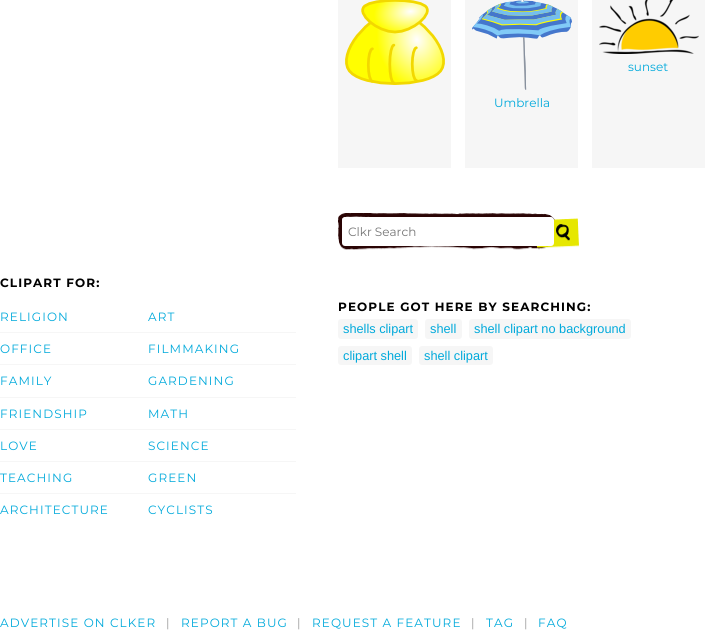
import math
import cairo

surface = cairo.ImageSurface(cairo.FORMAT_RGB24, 717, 643)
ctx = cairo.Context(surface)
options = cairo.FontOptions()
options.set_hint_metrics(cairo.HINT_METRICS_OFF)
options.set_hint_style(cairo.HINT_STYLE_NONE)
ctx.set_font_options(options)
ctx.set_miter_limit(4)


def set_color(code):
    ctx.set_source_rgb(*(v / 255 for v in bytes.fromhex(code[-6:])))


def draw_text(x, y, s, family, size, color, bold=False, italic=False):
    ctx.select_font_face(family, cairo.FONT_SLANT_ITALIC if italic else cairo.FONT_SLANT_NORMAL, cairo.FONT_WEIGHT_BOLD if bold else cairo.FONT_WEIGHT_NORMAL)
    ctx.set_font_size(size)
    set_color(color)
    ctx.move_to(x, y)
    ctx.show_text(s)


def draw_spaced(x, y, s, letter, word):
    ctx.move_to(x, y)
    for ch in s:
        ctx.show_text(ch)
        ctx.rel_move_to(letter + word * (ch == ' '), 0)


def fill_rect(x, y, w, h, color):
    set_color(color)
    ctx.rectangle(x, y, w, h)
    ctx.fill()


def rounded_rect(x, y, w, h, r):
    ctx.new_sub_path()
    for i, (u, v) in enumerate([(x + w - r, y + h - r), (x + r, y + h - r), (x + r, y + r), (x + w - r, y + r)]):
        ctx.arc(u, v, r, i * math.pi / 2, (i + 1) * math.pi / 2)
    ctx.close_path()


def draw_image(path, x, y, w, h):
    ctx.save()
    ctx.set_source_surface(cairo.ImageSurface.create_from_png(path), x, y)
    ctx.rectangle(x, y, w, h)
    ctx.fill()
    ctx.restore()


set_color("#ffffff")
ctx.paint()
fill_rect(338, 0, 113, 168, "#f6f6f6")
draw_image("assets/img1.png", 345, 0, 100, 85)
fill_rect(592, 0, 113, 168, "#f6f6f6")
draw_image("assets/img2.png", 599, 0, 100, 54)
draw_text(628, 71, "sunset", "Montserrat", 12, "#00a9db")
fill_rect(465, 0, 113, 168, "#f6f6f6")
draw_image("assets/img3.png", 472, 0, 100, 90)
draw_text(494, 107, "Umbrella", "Montserrat", 12, "#00a9db")
ctx.select_font_face("Montserrat", cairo.FONT_SLANT_NORMAL, cairo.FONT_WEIGHT_BOLD)
set_color("#000000")
draw_spaced(0, 287, "CLIPART FOR:", 1.1, 0)
fill_rect(0, 332, 296, 1, "#f6f6f6")
ctx.select_font_face("Montserrat")
set_color("#00a9db")
draw_spaced(0, 321, "RELIGION", 1.1, 0)
fill_rect(0, 364, 296, 1, "#f6f6f6")
set_color("#00a9db")
draw_spaced(0, 353, "OFFICE", 1.1, 0)
fill_rect(0, 397, 296, 1, "#f6f6f6")
set_color("#00a9db")
draw_spaced(0, 385, "FAMILY", 1.1, 0)
fill_rect(0, 429, 296, 1, "#f6f6f6")
set_color("#00a9db")
draw_spaced(0, 418, "FRIENDSHIP", 1.1, 0)
fill_rect(0, 461, 296, 1, "#f6f6f6")
set_color("#00a9db")
draw_spaced(0, 450, "LOVE", 1.1, 0)
fill_rect(0, 493, 296, 1, "#f6f6f6")
set_color("#00a9db")
draw_spaced(0, 482, "TEACHING", 1.1, 0)
draw_spaced(0, 514, "ARCHITECTURE", 1.1, 0)
draw_spaced(148, 321, "ART", 1.1, 0)
draw_spaced(148, 353, "FILMMAKING", 1.1, 0)
draw_spaced(148, 385, "GARDENING", 1.1, 0)
draw_spaced(148, 418, "MATH", 1.1, 0)
draw_spaced(148, 450, "SCIENCE", 1.1, 0)
draw_spaced(148, 482, "GREEN", 1.1, 0)
draw_spaced(148, 514, "CYCLISTS", 1.1, 0)
draw_image("assets/img4.png", 338, 213, 241, 37)
set_color("#ffffff")
rounded_rect(342, 217, 212, 29, 3)
ctx.fill()
draw_text(348, 236, "Clkr Search", "Montserrat", 12, "#757575")
ctx.select_font_face("Montserrat", cairo.FONT_SLANT_NORMAL, cairo.FONT_WEIGHT_BOLD)
set_color("#000000")
draw_spaced(338, 311, "PEOPLE GOT HERE BY SEARCHING:", 1.1, 0)
set_color("#f6f6f6")
rounded_rect(338, 319, 80, 20, 3)
ctx.fill()
draw_text(343, 333, "shells clipart", "Liberation Sans", 12.75, "#00a9db")
set_color("#f6f6f6")
rounded_rect(425, 319, 37, 20, 3)
ctx.fill()
draw_text(430, 333, "shell", "Liberation Sans", 12.75, "#00a9db")
set_color("#f6f6f6")
rounded_rect(469, 319, 162, 20, 3)
ctx.fill()
draw_text(474, 333, "shell clipart no background", "Liberation Sans", 12.75, "#00a9db")
set_color("#f6f6f6")
rounded_rect(338, 346, 74, 19, 3)
ctx.fill()
draw_text(343, 360, "clipart shell", "Liberation Sans", 12.75, "#00a9db")
set_color("#f6f6f6")
rounded_rect(419, 346, 74, 19, 3)
ctx.fill()
draw_text(424, 360, "shell clipart", "Liberation Sans", 12.75, "#00a9db")
ctx.select_font_face("Montserrat")
ctx.set_font_size(12)
draw_spaced(0, 627, "ADVERTISE ON CLKER", 1.1, 0)
set_color("#999999")
draw_spaced(166, 627, "|", 1.1, 0)
set_color("#00a9db")
draw_spaced(181, 627, "REPORT A BUG", 1.1, 0)
set_color("#999999")
draw_spaced(297, 627, "|", 1.1, 0)
set_color("#00a9db")
draw_spaced(312, 627, "REQUEST A FEATURE", 1.1, 0)
set_color("#999999")
draw_spaced(471, 627, "|", 1.1, 0)
set_color("#00a9db")
draw_spaced(486, 627, "TAG", 1.1, 0)
set_color("#999999")
draw_spaced(524, 627, "|", 1.1, 0)
set_color("#00a9db")
draw_spaced(538, 627, "FAQ", 1.1, 0)
surface.write_to_png("output.png")
